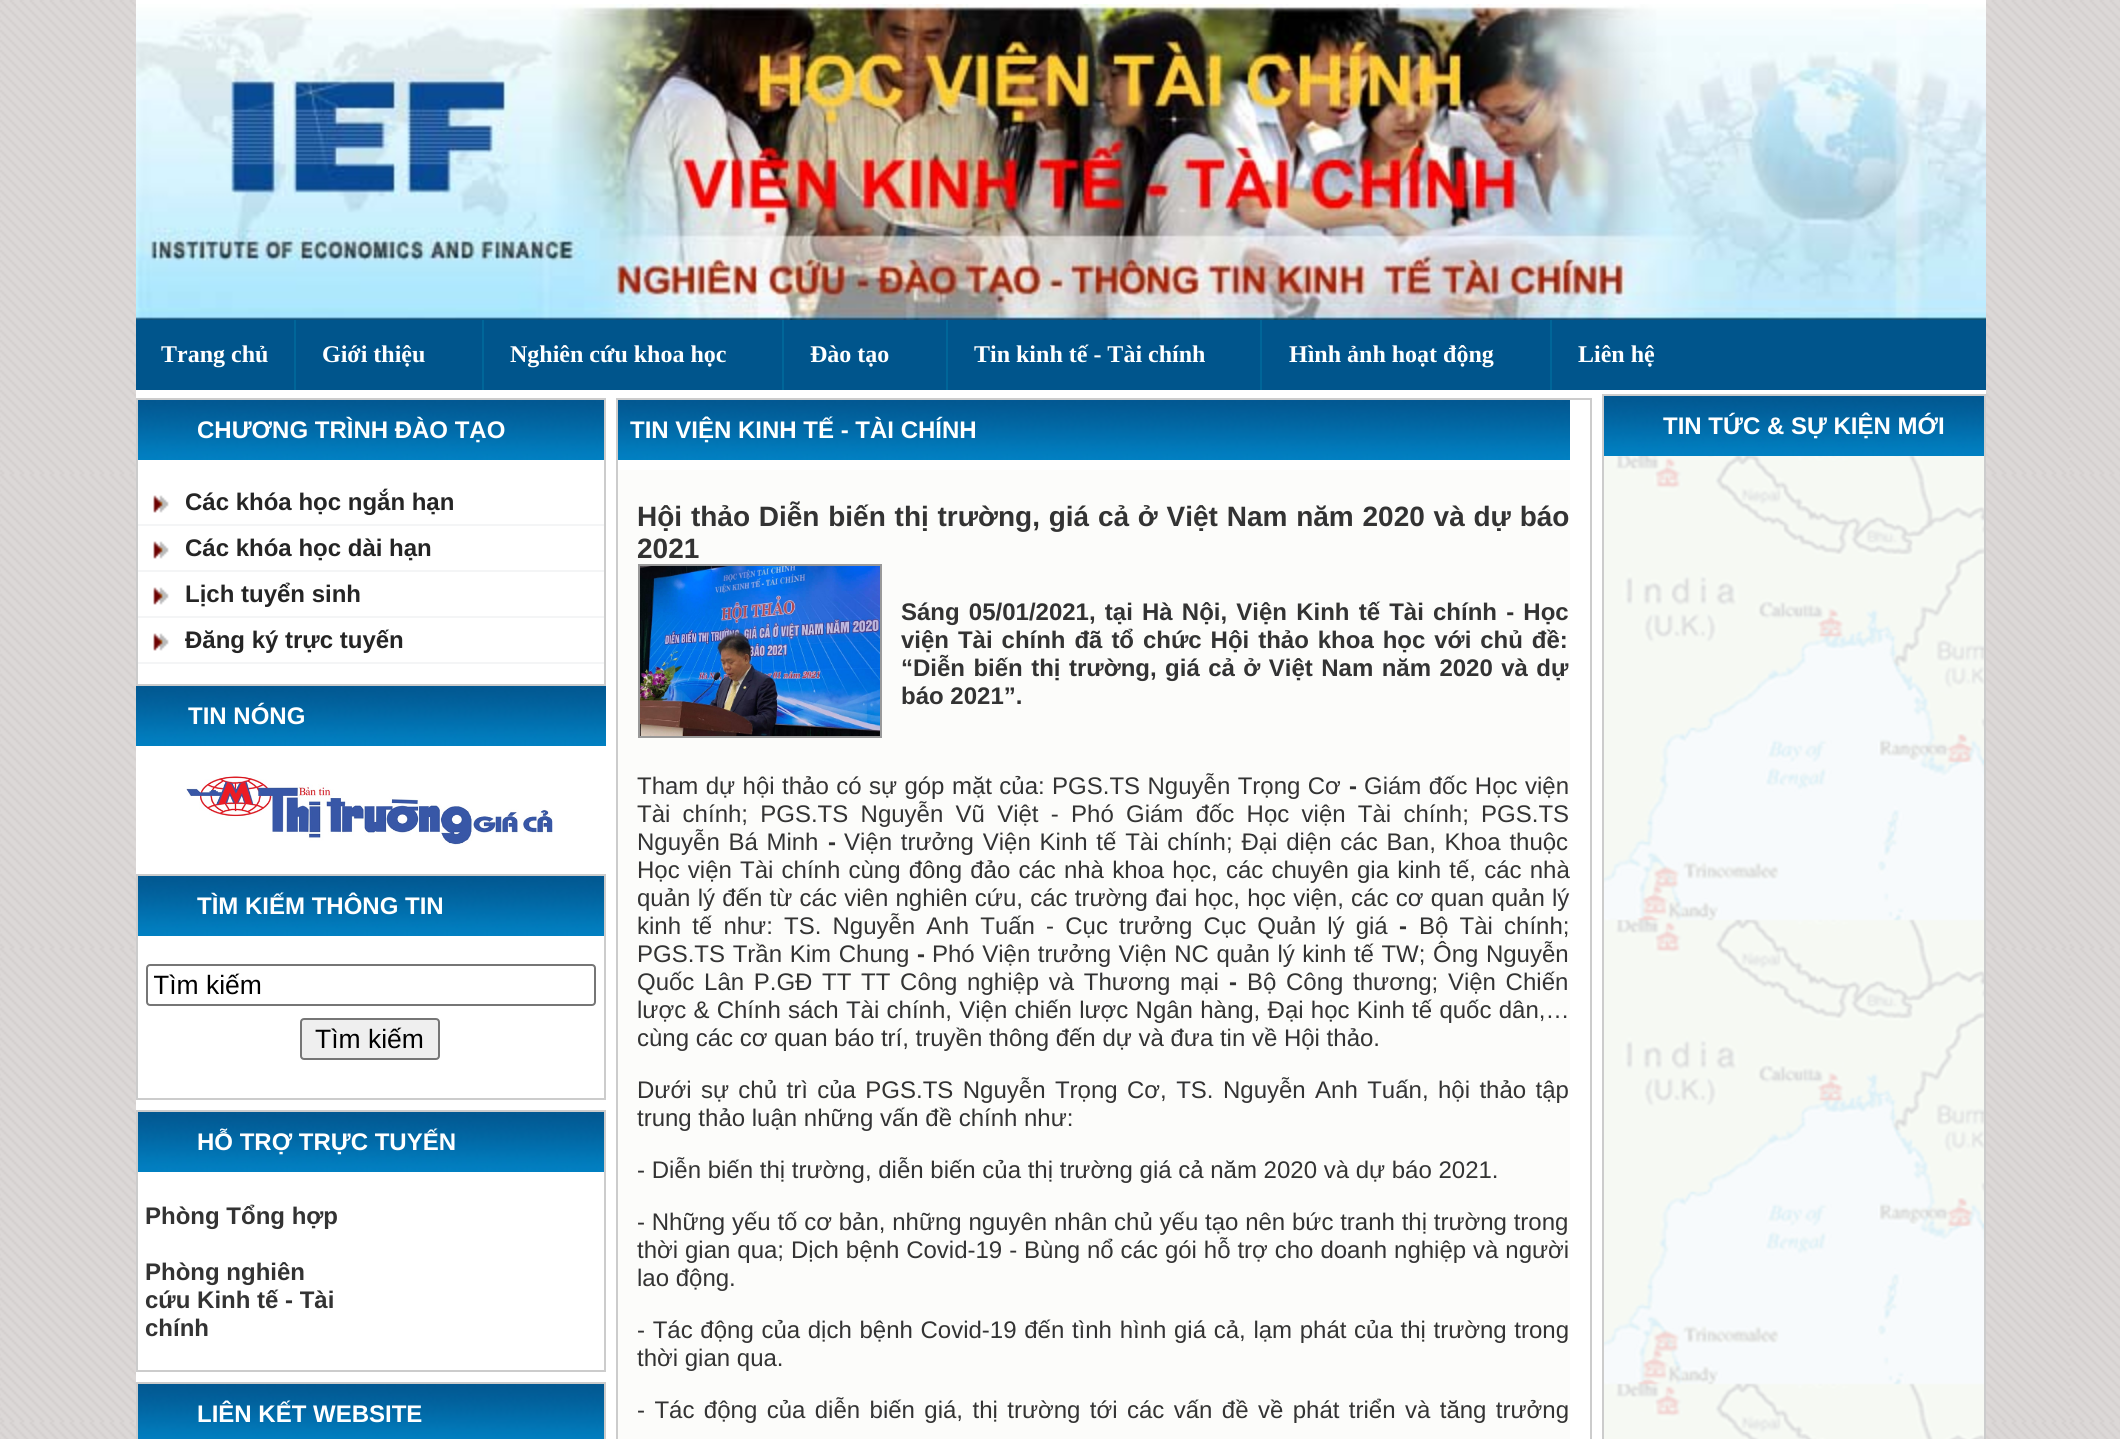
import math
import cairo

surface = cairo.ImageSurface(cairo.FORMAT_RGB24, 2120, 1439)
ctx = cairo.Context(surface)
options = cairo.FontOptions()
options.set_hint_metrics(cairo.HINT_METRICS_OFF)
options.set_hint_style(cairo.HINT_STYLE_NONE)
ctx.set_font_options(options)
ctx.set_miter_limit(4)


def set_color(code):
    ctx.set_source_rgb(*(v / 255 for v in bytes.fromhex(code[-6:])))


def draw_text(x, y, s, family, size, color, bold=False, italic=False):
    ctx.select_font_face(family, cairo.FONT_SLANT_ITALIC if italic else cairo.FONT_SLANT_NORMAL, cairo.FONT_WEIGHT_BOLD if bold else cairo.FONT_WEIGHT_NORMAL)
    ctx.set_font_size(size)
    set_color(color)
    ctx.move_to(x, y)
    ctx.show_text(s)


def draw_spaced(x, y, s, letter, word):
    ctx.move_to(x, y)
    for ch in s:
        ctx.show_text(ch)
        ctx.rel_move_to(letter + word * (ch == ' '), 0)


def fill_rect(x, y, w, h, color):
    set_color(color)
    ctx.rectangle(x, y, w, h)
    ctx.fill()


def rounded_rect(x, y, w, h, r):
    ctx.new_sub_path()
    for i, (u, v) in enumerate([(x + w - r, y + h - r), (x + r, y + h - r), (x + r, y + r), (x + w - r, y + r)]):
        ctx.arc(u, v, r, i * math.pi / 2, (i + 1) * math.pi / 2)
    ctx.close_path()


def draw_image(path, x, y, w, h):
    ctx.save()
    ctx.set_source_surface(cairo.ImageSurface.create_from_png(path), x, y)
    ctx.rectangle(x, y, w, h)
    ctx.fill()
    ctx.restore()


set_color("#ffffff")
ctx.paint()
draw_image("assets/img1.png", 0, 0, 2120, 1439)
fill_rect(136, 0, 1850, 1439, "#ffffff")
draw_image("assets/img2.png", 136, 4, 1850, 316)
fill_rect(136, 320, 1850, 70, "#00558c")
fill_rect(294, 320, 2, 70, "#006699")
draw_text(161, 362, "Trang chủ", "Liberation Serif", 24, "#ffffff", bold=True)
fill_rect(482, 320, 2, 70, "#006699")
draw_text(322, 362, "Giới thiệu", "Liberation Serif", 24, "#ffffff", bold=True)
fill_rect(782, 320, 2, 70, "#006699")
draw_text(510, 362, "Nghiên cứu khoa học", "Liberation Serif", 24, "#ffffff", bold=True)
fill_rect(946, 320, 2, 70, "#006699")
draw_text(810, 362, "Đào tạo", "Liberation Serif", 24, "#ffffff", bold=True)
fill_rect(1260, 320, 2, 70, "#006699")
draw_text(974, 362, "Tin kinh tế - Tài chính", "Liberation Serif", 24, "#ffffff", bold=True)
fill_rect(1550, 320, 2, 70, "#006699")
draw_text(1289, 362, "Hình ảnh hoạt động", "Liberation Serif", 24, "#ffffff", bold=True)
draw_text(1578, 362, "Liên hệ", "Liberation Serif", 24, "#ffffff", bold=True)
ctx.rectangle(137, 399, 468, 286)
set_color("#cccccc")
ctx.stroke()
draw_image("assets/img3.png", 138, 400, 466, 60)
draw_text(197, 438, "CHƯƠNG TRÌNH ĐÀO TẠO", "Liberation Sans", 24, "#ffffff", bold=True)
draw_image("assets/img4.png", 153, 495, 16, 18)
draw_text(185, 510, "Các khóa học ngắn hạn", "Liberation Sans", 24, "#252525", bold=True)
fill_rect(138, 524, 466, 2, "#f4f5f6")
draw_image("assets/img4.png", 153, 541, 16, 18)
draw_text(185, 556, "Các khóa học dài hạn", "Liberation Sans", 24, "#252525", bold=True)
fill_rect(138, 570, 466, 2, "#f4f5f6")
draw_image("assets/img4.png", 153, 587, 16, 18)
draw_text(185, 602, "Lịch tuyển sinh", "Liberation Sans", 24, "#252525", bold=True)
fill_rect(138, 616, 466, 2, "#f4f5f6")
draw_image("assets/img4.png", 153, 633, 16, 18)
draw_text(185, 648, "Đăng ký trực tuyến", "Liberation Sans", 24, "#252525", bold=True)
fill_rect(138, 662, 466, 2, "#f4f5f6")
draw_image("assets/img5.png", 136, 686, 470, 60)
draw_text(188, 724, "TIN NÓNG", "Liberation Sans", 24, "#ffffff", bold=True)
draw_image("assets/img6.png", 186, 776, 367, 69)
ctx.rectangle(137, 875, 468, 224)
set_color("#cccccc")
ctx.stroke()
draw_image("assets/img3.png", 138, 876, 466, 60)
draw_text(197, 914, "TÌM KIẾM THÔNG TIN", "Liberation Sans", 24, "#ffffff", bold=True)
rounded_rect(147, 965, 448, 40, 3)
set_color("#767676")
ctx.stroke()
ctx.save()
ctx.rectangle(154, 970, 434, 30)
ctx.clip()
draw_text(153, 994, "Tìm kiếm", "Liberation Sans", 26.5, "#000000")
ctx.restore()
set_color("#efefef")
rounded_rect(301, 1019, 138, 40, 3)
ctx.fill_preserve()
set_color("#767676")
ctx.stroke()
draw_text(315, 1048, "Tìm kiếm", "Liberation Sans", 26.5, "#000000")
ctx.rectangle(137, 1111, 468, 260)
set_color("#cccccc")
ctx.stroke()
draw_image("assets/img3.png", 138, 1112, 466, 60)
draw_text(197, 1150, "HỖ TRỢ TRỰC TUYẾN", "Liberation Sans", 24, "#ffffff", bold=True)
draw_text(145, 1224, "Phòng Tổng hợp", "Liberation Sans", 24, "#333333", bold=True)
draw_text(145, 1280, "Phòng nghiên", "Liberation Sans", 24, "#333333", bold=True)
draw_text(145, 1308, "cứu Kinh tế - Tài", "Liberation Sans", 24, "#333333", bold=True)
draw_text(145, 1336, "chính", "Liberation Sans", 24, "#333333", bold=True)
ctx.rectangle(137, 1383, 468, 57)
set_color("#cccccc")
ctx.stroke()
draw_image("assets/img7.png", 138, 1384, 466, 55)
draw_text(197, 1422, "LIÊN KẾT WEBSITE", "Liberation Sans", 24, "#ffffff", bold=True)
ctx.rectangle(617, 399, 974, 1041)
set_color("#cccccc")
ctx.stroke()
draw_image("assets/img8.png", 618, 400, 952, 60)
draw_text(630, 438, "TIN VIỆN KINH TẾ - TÀI CHÍNH", "Liberation Sans", 24, "#ffffff", bold=True)
fill_rect(618, 470, 952, 969, "#fcfcfa")
ctx.set_font_size(28)
set_color("#333333")
draw_spaced(637, 526, "Hội thảo Diễn biến thị trường, giá cả ở Việt Nam năm 2020 và dự báo", 0, 1)
draw_text(637, 558, "2021", "Liberation Sans", 28, "#333333", bold=True)
fill_rect(638, 564, 244, 2, "#999999")
fill_rect(880, 564, 2, 174, "#999999")
fill_rect(638, 736, 244, 2, "#999999")
fill_rect(638, 564, 2, 174, "#999999")
draw_image("assets/img9.png", 640, 566, 240, 170)
ctx.set_font_size(24)
set_color("#333333")
draw_spaced(901, 620, "Sáng 05/01/2021, tại Hà Nội, Viện Kinh tế Tài chính - Học", 0, 2.5)
draw_spaced(901, 648, "viện Tài chính đã tổ chức Hội thảo khoa học với chủ đề:", 0, 2.25)
draw_spaced(901, 676, "“Diễn biến thị trường, giá cả ở Việt Nam năm 2020 và dự", 0, 1.75)
draw_text(901, 704, "báo 2021”.", "Liberation Sans", 24, "#333333", bold=True)
ctx.select_font_face("Liberation Sans")
draw_spaced(637, 794, "Tham dự hội thảo có sự góp mặt của: PGS.TS Nguyễn Trọng Cơ", 0, 0.75)
draw_text(1349, 794, "-", "Liberation Sans", 24, "#333333", bold=True)
ctx.select_font_face("Liberation Sans")
draw_spaced(1364, 794, "Giám đốc Học viện", 0, 0.75)
draw_spaced(637, 822, "Tài chính; PGS.TS Nguyễn Vũ Việt - Phó Giám đốc Học viện Tài chính; PGS.TS", 0, 5.6)
draw_spaced(637, 850, "Nguyễn Bá Minh", 0, 2)
draw_text(828, 850, "-", "Liberation Sans", 24, "#333333", bold=True)
ctx.select_font_face("Liberation Sans")
draw_spaced(844, 850, "Viện trưởng Viện Kinh tế Tài chính; Đại diện các Ban, Khoa thuộc", 0, 2.1)
draw_spaced(637, 878, "Học viện Tài chính cùng đông đảo các nhà khoa học, các chuyên gia kinh tế, các nhà", 0, 1.5)
draw_spaced(637, 906, "quản lý đến từ các viên nghiên cứu, các trường đai học, học viện, các cơ quan quản lý", 0, 0.6)
draw_spaced(637, 934, "kinh tế như: TS. Nguyễn Anh Tuấn - Cục trưởng Cục Quản lý giá", 0, 4.5)
draw_text(1399, 934, "-", "Liberation Sans", 24, "#333333", bold=True)
ctx.select_font_face("Liberation Sans")
draw_spaced(1419, 934, "Bộ Tài chính;", 0, 4.5)
draw_spaced(637, 962, "PGS.TS Trần Kim Chung", 0, 1)
draw_text(917, 962, "-", "Liberation Sans", 24, "#333333", bold=True)
ctx.select_font_face("Liberation Sans")
draw_spaced(932, 962, "Phó Viện trưởng Viện NC quản lý kinh tế TW; Ông Nguyễn", 0, 0.9)
draw_spaced(637, 990, "Quốc Lân P.GĐ TT TT Công nghiệp và Thương mại", 0, 3)
draw_text(1229, 990, "-", "Liberation Sans", 24, "#333333", bold=True)
ctx.select_font_face("Liberation Sans")
draw_spaced(1247, 990, "Bộ Công thương; Viện Chiến", 0, 3)
draw_spaced(637, 1018, "lược & Chính sách Tài chính, Viện chiến lược Ngân hàng, Đại học Kinh tế quốc dân,…", 0, 0.6)
draw_text(637, 1046, "cùng các cơ quan báo trí, truyền thông đến dự và đưa tin về Hội thảo.", "Liberation Sans", 24, "#333333")
draw_spaced(637, 1098, "Dưới sự chủ trì của PGS.TS Nguyễn Trọng Cơ, TS. Nguyễn Anh Tuấn, hội thảo tập", 0, 2.75)
draw_text(637, 1126, "trung thảo luận những vấn đề chính như:", "Liberation Sans", 24, "#333333")
draw_text(637, 1178, "- Diễn biến thị trường, diễn biến của thị trường giá cả năm 2020 và dự báo 2021.", "Liberation Sans", 24, "#333333")
draw_spaced(637, 1230, "- Những yếu tố cơ bản, những nguyên nhân chủ yếu tạo nên bức tranh thị trường trong", 0, 0.1)
draw_spaced(637, 1258, "thời gian qua; Dịch bệnh Covid-19 - Bùng nổ các gói hỗ trợ cho doanh nghiệp và người", 0, 0.25)
draw_text(637, 1286, "lao động.", "Liberation Sans", 24, "#333333")
draw_spaced(637, 1338, "- Tác động của dịch bệnh Covid-19 đến tình hình giá cả, lạm phát của thị trường trong", 0, 1)
draw_text(637, 1366, "thời gian qua.", "Liberation Sans", 24, "#333333")
draw_spaced(637, 1418, "- Tác động của diễn biến giá, thị trường tới các vấn đề về phát triển và tăng trưởng", 0, 2.75)
ctx.rectangle(1603, 395, 382, 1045)
set_color("#cccccc")
ctx.stroke()
draw_image("assets/img10.png", 1604, 396, 380, 60)
draw_text(1663, 434, "TIN TỨC & SỰ KIỆN MỚI", "Liberation Sans", 24, "#ffffff", bold=True)
draw_image("assets/img11.png", 1604, 456, 380, 983)
surface.write_to_png("output.png")
